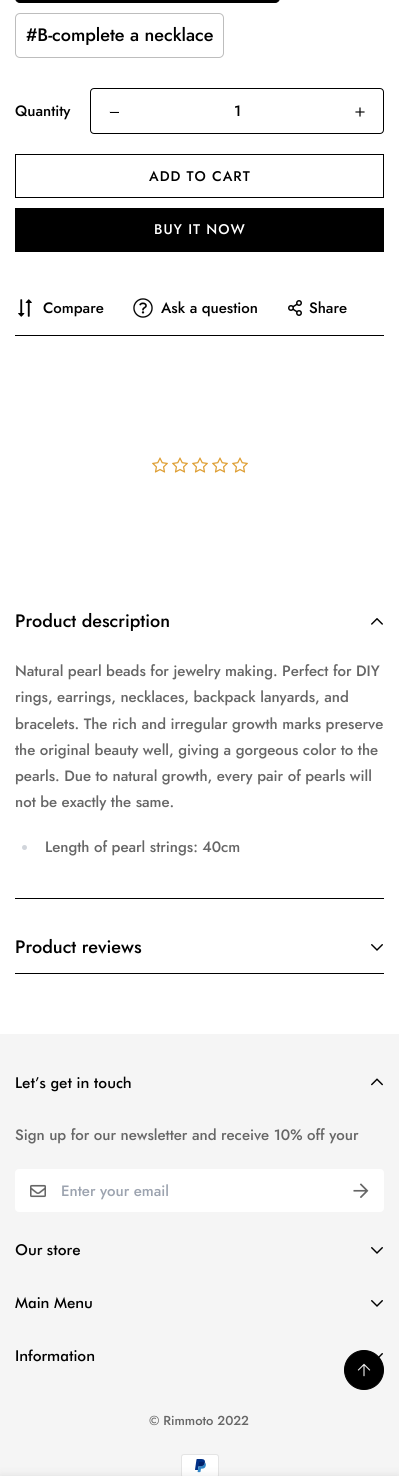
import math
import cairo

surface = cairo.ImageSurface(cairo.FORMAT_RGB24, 399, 1476)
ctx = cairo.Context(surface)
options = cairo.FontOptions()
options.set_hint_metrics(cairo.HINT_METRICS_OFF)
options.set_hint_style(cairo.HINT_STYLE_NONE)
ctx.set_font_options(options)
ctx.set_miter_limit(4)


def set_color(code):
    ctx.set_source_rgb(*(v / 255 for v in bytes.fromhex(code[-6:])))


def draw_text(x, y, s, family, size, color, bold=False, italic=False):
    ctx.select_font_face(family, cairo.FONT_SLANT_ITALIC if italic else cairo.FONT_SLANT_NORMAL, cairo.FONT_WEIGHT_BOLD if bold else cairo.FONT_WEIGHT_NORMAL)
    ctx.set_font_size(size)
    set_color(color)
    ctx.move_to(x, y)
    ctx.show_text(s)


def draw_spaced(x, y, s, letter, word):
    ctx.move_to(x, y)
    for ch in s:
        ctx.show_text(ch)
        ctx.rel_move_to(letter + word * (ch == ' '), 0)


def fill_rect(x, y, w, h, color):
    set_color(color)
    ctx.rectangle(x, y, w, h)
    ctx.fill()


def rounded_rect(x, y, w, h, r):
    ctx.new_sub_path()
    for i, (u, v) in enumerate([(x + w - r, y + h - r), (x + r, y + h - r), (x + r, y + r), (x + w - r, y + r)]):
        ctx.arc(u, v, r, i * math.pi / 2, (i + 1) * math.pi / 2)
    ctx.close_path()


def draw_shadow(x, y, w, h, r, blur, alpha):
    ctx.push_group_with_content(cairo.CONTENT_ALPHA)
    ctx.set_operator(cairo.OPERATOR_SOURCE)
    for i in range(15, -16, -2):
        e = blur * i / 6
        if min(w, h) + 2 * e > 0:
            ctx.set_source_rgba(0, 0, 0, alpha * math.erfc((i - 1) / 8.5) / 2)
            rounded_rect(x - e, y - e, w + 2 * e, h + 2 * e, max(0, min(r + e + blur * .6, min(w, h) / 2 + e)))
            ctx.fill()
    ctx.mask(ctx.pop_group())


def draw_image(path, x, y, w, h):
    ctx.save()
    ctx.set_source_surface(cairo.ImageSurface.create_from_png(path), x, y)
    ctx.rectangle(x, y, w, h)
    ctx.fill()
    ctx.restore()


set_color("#ffffff")
ctx.paint()
set_color("#000000")
rounded_rect(15.5, -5.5, 264, 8, 4.5)
ctx.fill_preserve()
ctx.set_line_width(1)
ctx.stroke()
rounded_rect(15.5, 13.5, 208, 44, 4.5)
set_color("#bdbdbd")
ctx.stroke()
draw_text(26, 41, "#B-complete a necklace", "Jost Medium", 18, "#000000")
draw_text(15, 116, "Quantity", "Jost Medium", 15, "#000000")
rounded_rect(90.5, 88.5, 293, 45, 3.5)
ctx.stroke()
draw_image("assets/img1.png", 109, 111, 10, 2)
draw_text(234, 116, "1", "Jost Medium", 15, "#000000")
draw_image("assets/img2.png", 355, 107, 10, 10)
ctx.rectangle(15.5, 154.5, 368, 43)
ctx.stroke()
ctx.set_font_size(14)
draw_spaced(149, 181, "ADD TO CART", 1, 0)
fill_rect(15, 208, 369, 44, "#000000")
set_color("#ffffff")
draw_spaced(154, 234, "BUY IT NOW", 1, 0)
fill_rect(15, 335, 369, 1, "#000000")
draw_image("assets/img3.png", 18, 299, 14, 18)
draw_text(43, 313, "Compare", "Jost Medium", 15, "#000000")
draw_image("assets/img4.png", 133, 298, 20, 20)
draw_text(161, 313, "Ask a question", "Jost Medium", 15, "#000000")
draw_image("assets/img5.png", 288, 300, 14, 16)
draw_text(309, 313, "Share", "Jost Medium", 15, "#000000")
fill_rect(0, 1034, 399, 442, "#f5f5f5")
draw_image("assets/img14.png", 181, 1454, 38, 22)
set_color("#000000")
draw_shadow(0, 1476, 399, 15, 0, 5, 0.09)
draw_image("assets/img6.png", 152, 457, 16, 16)
draw_image("assets/img6.png", 172, 457, 16, 16)
draw_image("assets/img6.png", 192, 457, 16, 16)
draw_image("assets/img6.png", 212, 457, 16, 16)
draw_image("assets/img6.png", 232, 457, 16, 16)
fill_rect(15, 898, 369, 1, "#000000")
draw_text(15, 627, "Product description", "Jost Medium", 18, "#000000")
draw_image("assets/img7.png", 371, 618, 12, 7)
draw_text(15, 676, "Natural pearl beads for jewelry making. Perfect for DIY", "Jost Medium", 15, "#666666")
draw_text(15, 702, "rings, earrings, necklaces, backpack lanyards, and", "Jost Medium", 15, "#666666")
draw_text(15, 729, "bracelets. The rich and irregular growth marks preserve", "Jost Medium", 15, "#666666")
draw_text(15, 755, "the original beauty well, giving a gorgeous color to the", "Jost Medium", 15, "#666666")
draw_text(15, 781, "pearls. Due to natural growth, every pair of pearls will", "Jost Medium", 15, "#666666")
draw_text(15, 807, "not be exactly the same.", "Jost Medium", 15, "#666666")
set_color("#d1d5db")
ctx.new_path()
ctx.arc(24.5, 847.5, 2.5, 0, 2 * math.pi)
ctx.fill()
draw_text(45, 852, "Length of pearl strings: 40cm", "Jost Medium", 15, "#666666")
fill_rect(15, 973, 369, 1, "#000000")
draw_text(15, 953, "Product reviews", "Jost Medium", 18, "#000000")
draw_image("assets/img8.png", 371, 944, 12, 7)
draw_text(15, 1088, "Let’s get in touch", "Futura Medium", 15, "#000000")
draw_image("assets/img9.png", 371, 1078, 12, 8)
draw_text(15, 1140, "Sign up for our newsletter and receive 10% off your", "Jost Medium", 15, "#666666")
set_color("#ffffff")
rounded_rect(15, 1169, 369, 43, 4)
ctx.fill()
draw_image("assets/img10.png", 30, 1184, 16, 14)
draw_text(61, 1196, "Enter your email", "Jost Medium", 15, "#9ca3af")
draw_image("assets/img11.png", 353, 1183, 16, 15)
draw_text(15, 1255, "Our store", "Futura Medium", 15, "#000000")
draw_image("assets/img12.png", 371, 1247, 12, 7)
draw_text(15, 1308, "Main Menu", "Futura Medium", 15, "#000000")
draw_image("assets/img12.png", 371, 1300, 12, 7)
draw_text(15, 1361, "Information", "Futura Medium", 15, "#000000")
draw_image("assets/img13.png", 378, 1353, 5, 5)
draw_text(149, 1425, "© Rimmoto 2022", "Jost Medium", 13, "#666666")
set_color("#000000")
ctx.new_path()
ctx.arc(364, 1370, 19.5, 0, 2 * math.pi)
ctx.fill_preserve()
ctx.stroke()
draw_image("assets/img15.png", 357, 1363, 14, 14)
surface.write_to_png("output.png")
